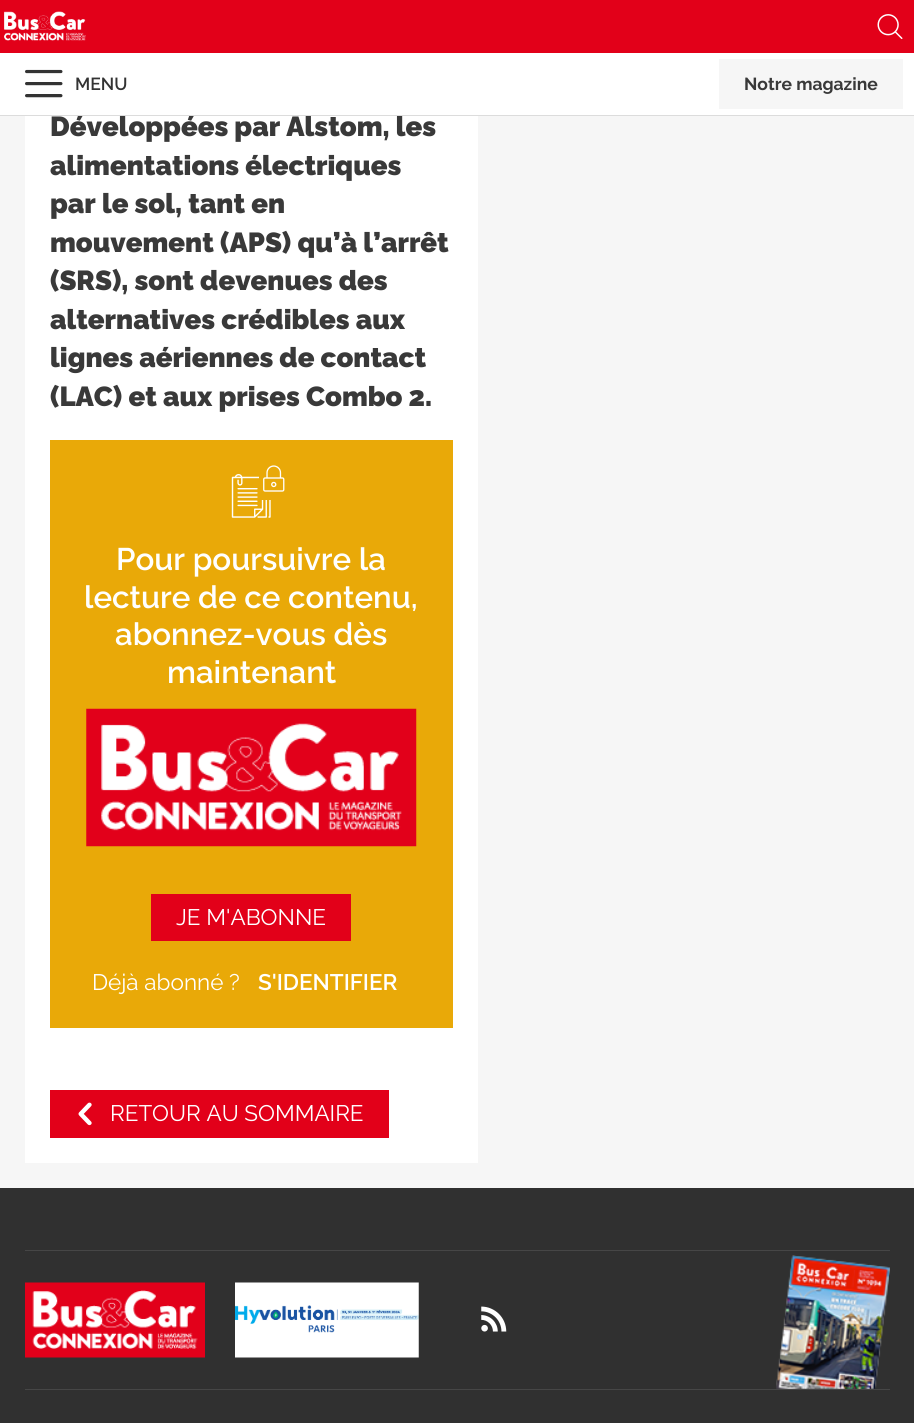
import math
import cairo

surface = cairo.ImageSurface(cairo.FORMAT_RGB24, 914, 1423)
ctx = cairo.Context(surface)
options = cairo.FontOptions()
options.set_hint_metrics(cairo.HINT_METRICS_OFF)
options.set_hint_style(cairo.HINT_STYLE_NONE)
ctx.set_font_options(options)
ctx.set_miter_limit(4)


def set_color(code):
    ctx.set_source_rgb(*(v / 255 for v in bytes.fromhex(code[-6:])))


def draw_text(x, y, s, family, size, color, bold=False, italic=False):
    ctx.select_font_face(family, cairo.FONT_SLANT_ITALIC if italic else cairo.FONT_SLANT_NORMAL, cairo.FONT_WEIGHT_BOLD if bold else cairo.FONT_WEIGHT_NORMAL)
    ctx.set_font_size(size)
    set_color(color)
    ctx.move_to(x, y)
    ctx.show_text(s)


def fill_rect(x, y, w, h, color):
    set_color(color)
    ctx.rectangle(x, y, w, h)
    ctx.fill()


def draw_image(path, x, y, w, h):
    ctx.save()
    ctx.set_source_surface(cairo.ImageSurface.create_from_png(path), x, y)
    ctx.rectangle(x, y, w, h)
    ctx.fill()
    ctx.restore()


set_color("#f6f6f6")
ctx.paint()
fill_rect(0, 53, 914, 62, "#ffffff")
fill_rect(25, 116, 453, 1047, "#ffffff")
draw_text(50, 136, "Développées par Alstom, les", "Raleway Black", 27.5, "#393939")
fill_rect(0, 115, 914, 1, "#dcdcdc")
fill_rect(0, 0, 914, 53, "#e20019")
draw_image("assets/img1.png", 4, 11, 82, 30)
draw_image("assets/img2.png", 877, 14, 26, 25)
draw_image("assets/img3.png", 25, 69, 38, 29)
draw_text(75, 90, "MENU", "Raleway SemiBold", 17.5, "#333333")
fill_rect(719, 59, 184, 50, "#f6f6f6")
draw_text(744, 90, "Notre magazine", "Raleway", 17.5, "#393939", bold=True)
draw_text(50, 175, "alimentations électriques", "Raleway Black", 27.5, "#393939")
draw_text(50, 213, "par le sol, tant en", "Raleway Black", 27.5, "#393939")
draw_text(50, 252, "mouvement (APS) qu’à l’arrêt", "Raleway Black", 27.5, "#393939")
draw_text(50, 290, "(SRS), sont devenues des", "Raleway Black", 27.5, "#393939")
draw_text(50, 329, "alternatives crédibles aux", "Raleway Black", 27.5, "#393939")
draw_text(50, 367, "lignes aériennes de contact", "Raleway Black", 27.5, "#393939")
draw_text(50, 406, "(LAC) et aux prises Combo 2.", "Raleway Black", 27.5, "#393939")
fill_rect(50, 440, 403, 588, "#e9a908")
draw_image("assets/img4.png", 231, 474, 40, 44)
fill_rect(259, 476, 12, 24, "#e9a908")
draw_image("assets/img5.png", 263, 465, 22, 27)
draw_text(116, 570, "Pour poursuivre la", "Raleway SemiBold", 31.25, "#ffffff")
draw_text(84, 608, "lecture de ce contenu,", "Raleway SemiBold", 31.25, "#ffffff")
draw_text(115, 645, "abonnez-vous dès", "Raleway SemiBold", 31.25, "#ffffff")
draw_text(167, 683, "maintenant", "Raleway SemiBold", 31.25, "#ffffff")
draw_image("assets/img6.png", 86, 708, 331, 139)
fill_rect(151, 894, 200, 47, "#e20019")
draw_text(176, 925, "JE M'ABONNE", "Raleway", 22.5, "#ffffff")
draw_text(92, 990, "Déjà abonné ?", "Raleway", 22.5, "#ffffff")
draw_text(258, 990, "S'IDENTIFIER", "Raleway SemiBold", 22.5, "#ffffff")
fill_rect(50, 1090, 339, 48, "#e20019")
draw_image("assets/img7.png", 78, 1102, 14, 24)
draw_text(110, 1121, "RETOUR AU SOMMAIRE", "Raleway", 22.5, "#ffffff")
fill_rect(0, 1188, 914, 235, "#303030")
draw_image("assets/img8.png", 776, 1255, 114, 134)
fill_rect(25, 1250, 865, 1, "#464646")
fill_rect(25, 1389, 865, 1, "#464646")
draw_image("assets/img9.png", 25, 1282, 180, 76)
draw_image("assets/img10.png", 235, 1282, 184, 76)
draw_image("assets/img11.png", 481, 1306, 26, 26)
surface.write_to_png("output.png")
